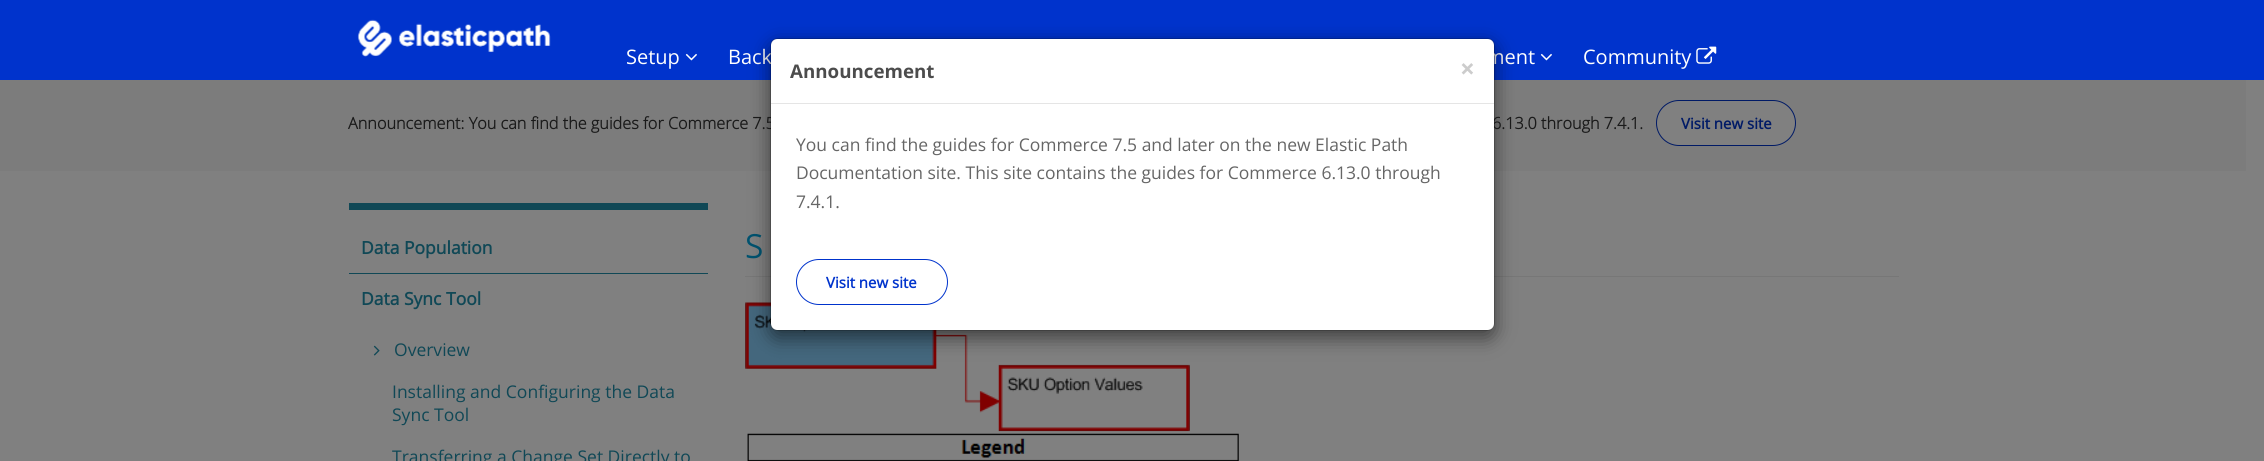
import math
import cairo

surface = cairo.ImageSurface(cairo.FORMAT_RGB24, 2264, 461)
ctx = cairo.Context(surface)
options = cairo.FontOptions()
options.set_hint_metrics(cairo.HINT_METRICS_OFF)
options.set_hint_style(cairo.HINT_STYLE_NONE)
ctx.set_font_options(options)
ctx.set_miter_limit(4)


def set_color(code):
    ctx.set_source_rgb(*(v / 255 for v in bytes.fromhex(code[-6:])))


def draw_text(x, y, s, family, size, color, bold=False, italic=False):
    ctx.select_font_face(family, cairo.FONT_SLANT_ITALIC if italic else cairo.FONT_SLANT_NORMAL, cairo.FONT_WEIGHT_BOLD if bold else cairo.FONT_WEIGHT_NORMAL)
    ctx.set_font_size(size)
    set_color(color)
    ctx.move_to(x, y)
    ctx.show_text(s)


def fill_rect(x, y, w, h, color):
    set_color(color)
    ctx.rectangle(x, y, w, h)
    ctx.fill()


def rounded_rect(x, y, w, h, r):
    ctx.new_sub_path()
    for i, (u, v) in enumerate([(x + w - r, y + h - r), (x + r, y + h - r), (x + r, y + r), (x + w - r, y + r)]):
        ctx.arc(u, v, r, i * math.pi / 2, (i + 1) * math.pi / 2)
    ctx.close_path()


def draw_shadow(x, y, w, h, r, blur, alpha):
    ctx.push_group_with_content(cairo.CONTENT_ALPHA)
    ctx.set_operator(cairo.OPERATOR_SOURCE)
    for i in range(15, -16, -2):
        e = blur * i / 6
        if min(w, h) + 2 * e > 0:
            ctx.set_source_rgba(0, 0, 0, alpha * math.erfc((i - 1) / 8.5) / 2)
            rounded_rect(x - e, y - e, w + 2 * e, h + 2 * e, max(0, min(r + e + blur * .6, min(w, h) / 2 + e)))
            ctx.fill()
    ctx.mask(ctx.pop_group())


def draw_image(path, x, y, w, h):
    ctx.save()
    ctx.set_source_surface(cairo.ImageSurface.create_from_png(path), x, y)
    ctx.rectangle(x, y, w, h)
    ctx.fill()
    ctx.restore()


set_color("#808080")
ctx.paint()
fill_rect(0, 0, 2264, 80, "#0033cc")
draw_image("assets/img1.png", 357, 19, 194, 38)
draw_text(626, 64, "Setup", "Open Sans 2", 20, "#ffffff")
draw_image("assets/img2.png", 685, 53, 12, 8)
draw_text(728, 64, "Back", "Open Sans 2", 20, "#ffffff")
draw_text(1486, 64, "ment", "Open Sans 2", 20, "#ffffff")
draw_image("assets/img2.png", 1540, 53, 12, 8)
draw_text(1583, 64, "Community", "Open Sans 2", 20, "#ffffff")
draw_image("assets/img3.png", 1696, 46, 21, 18)
fill_rect(745, 276, 1154, 1, "#777777")
draw_text(745, 258, "S", "Open Sans", 32, "#00526f", bold=True)
draw_image("assets/img4.png", 745, 302, 445, 130)
fill_rect(0, 80, 2246, 91, "#7c7c7c")
set_color("#000000")
draw_shadow(770, 44, 725, 294, 8, 9.5, 0.5)
draw_text(348, 129, "Announcement: You can find the guides for Commerce 7.5", "Open Sans", 16.25, "#1a1a1a", bold=True)
draw_text(1492, 129, "6.13.0 through 7.4.1.", "Open Sans", 16.25, "#1a1a1a", bold=True)
set_color("#ffffff")
rounded_rect(771, 39, 723, 291, 6)
ctx.fill()
rounded_rect(770.5, 38.5, 724, 292, 7.5)
ctx.set_source_rgba(0, 0, 0, 0.2)
ctx.set_line_width(1)
ctx.stroke()
fill_rect(771, 103, 723, 1, "#e5e5e5")
draw_text(790, 78, "Announcement", "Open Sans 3", 18.75, "#4c4c4c", bold=True)
draw_text(1460, 78, "×", "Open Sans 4", 26, "#cccccc", bold=True)
draw_text(796, 151, "You can find the guides for Commerce 7.5 and later on the new Elastic Path", "Open Sans 2", 17.5, "#666666")
draw_text(796, 179, "Documentation site. This site contains the guides for Commerce 6.13.0 through", "Open Sans 2", 17.5, "#666666")
draw_text(796, 208, "7.4.1.", "Open Sans 2", 17.5, "#666666")
rounded_rect(796.5, 259.5, 151, 45, 22.5)
set_color("#0033cc")
ctx.stroke()
draw_text(826, 288, "Visit new site", "Open Sans 2", 15, "#0033cc", bold=True)
draw_image("assets/img5.png", 747, 431, 492, 30)
fill_rect(349, 203, 359, 7, "#104856")
fill_rect(349, 273, 359, 1, "#104856")
draw_text(361, 254, "Data Population", "Open Sans 2", 17.5, "#104856", bold=True)
draw_text(361, 305, "Data Sync Tool", "Open Sans 2", 17.5, "#104856", bold=True)
draw_image("assets/img6.png", 373, 345, 7, 11)
draw_text(394, 356, "Overview", "Open Sans", 17.5, "#104856")
draw_text(392, 398, "Installing and Configuring the Data", "Open Sans", 17.5, "#104856")
draw_text(392, 421, "Sync Tool", "Open Sans", 17.5, "#104856")
draw_text(392, 463, "Transferring a Change Set Directly to", "Open Sans", 17.5, "#104856")
set_color("#808080")
rounded_rect(1656.5, 100.5, 139, 45, 22.5)
ctx.fill_preserve()
set_color("#001a66")
ctx.stroke()
draw_text(1681, 129, "Visit new site", "Open Sans 2", 15, "#001a66", bold=True)
surface.write_to_png("output.png")
